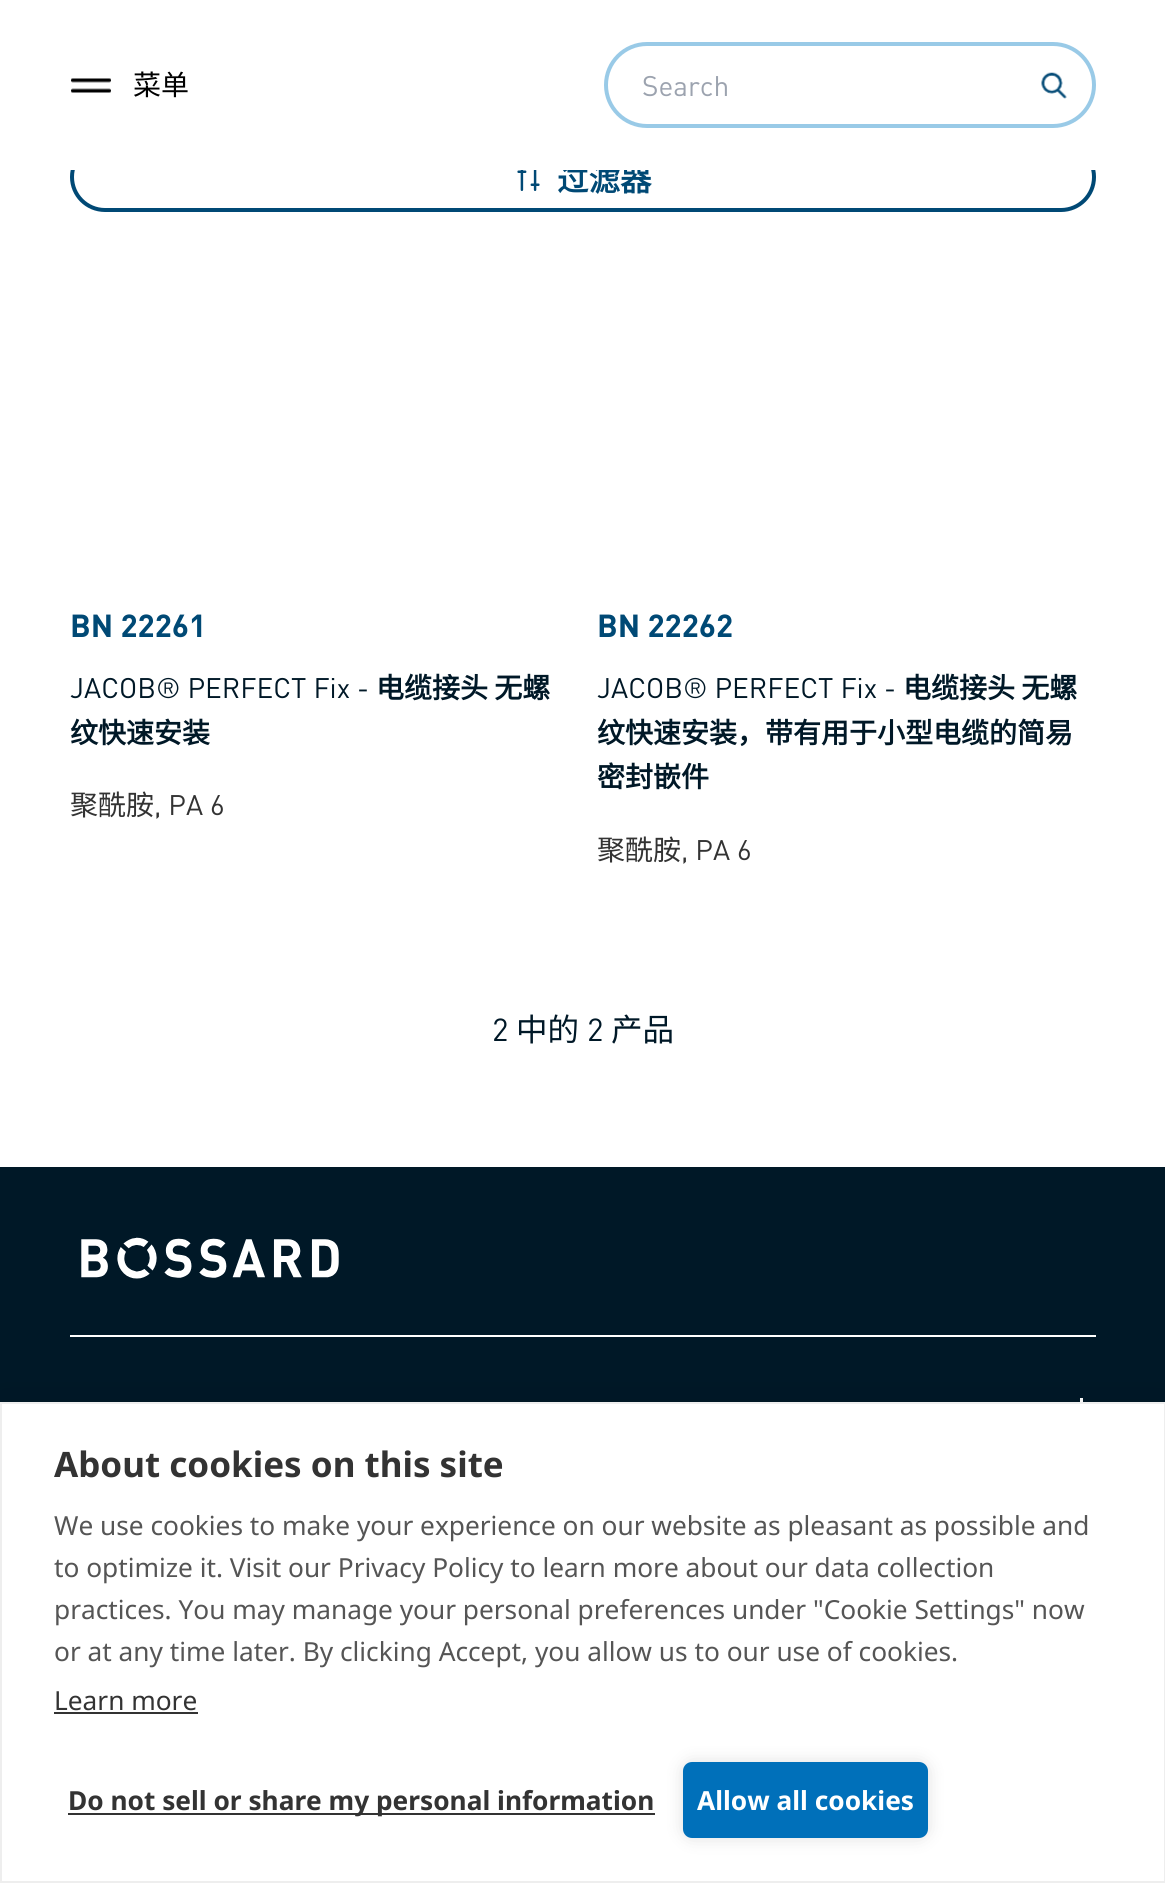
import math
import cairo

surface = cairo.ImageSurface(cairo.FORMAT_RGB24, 1165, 1883)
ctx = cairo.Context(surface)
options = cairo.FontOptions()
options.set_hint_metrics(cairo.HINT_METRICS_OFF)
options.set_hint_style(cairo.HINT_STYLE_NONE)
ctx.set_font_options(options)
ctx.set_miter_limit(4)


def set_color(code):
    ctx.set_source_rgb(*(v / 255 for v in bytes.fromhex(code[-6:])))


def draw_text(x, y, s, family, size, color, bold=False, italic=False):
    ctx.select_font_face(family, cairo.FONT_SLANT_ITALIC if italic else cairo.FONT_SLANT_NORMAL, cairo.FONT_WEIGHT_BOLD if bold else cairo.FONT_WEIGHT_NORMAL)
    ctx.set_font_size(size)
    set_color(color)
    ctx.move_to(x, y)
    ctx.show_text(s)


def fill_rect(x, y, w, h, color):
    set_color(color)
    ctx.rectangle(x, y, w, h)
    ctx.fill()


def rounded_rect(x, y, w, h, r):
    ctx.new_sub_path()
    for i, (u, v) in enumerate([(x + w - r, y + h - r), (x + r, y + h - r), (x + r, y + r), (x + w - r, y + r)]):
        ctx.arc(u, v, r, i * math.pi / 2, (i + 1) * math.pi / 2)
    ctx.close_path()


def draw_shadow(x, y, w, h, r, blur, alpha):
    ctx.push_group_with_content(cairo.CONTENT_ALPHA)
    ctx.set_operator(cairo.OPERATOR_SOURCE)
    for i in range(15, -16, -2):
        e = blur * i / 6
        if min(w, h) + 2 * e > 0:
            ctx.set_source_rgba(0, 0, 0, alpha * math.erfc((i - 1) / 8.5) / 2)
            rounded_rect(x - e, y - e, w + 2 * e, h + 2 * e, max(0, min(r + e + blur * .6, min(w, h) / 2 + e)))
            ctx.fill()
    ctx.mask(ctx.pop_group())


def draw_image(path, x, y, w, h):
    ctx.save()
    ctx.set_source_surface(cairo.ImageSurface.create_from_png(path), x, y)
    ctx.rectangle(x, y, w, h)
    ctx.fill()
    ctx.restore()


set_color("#ffffff")
ctx.paint()
rounded_rect(72, 144, 1022, 66, 33)
set_color("#004975")
ctx.set_line_width(4)
ctx.stroke()
draw_text(557, 191, "过滤器", "Noto Sans CJK SC", 31.5, "#004975", bold=True)
fill_rect(70, 142, 1026, 28, "#ffffff")
draw_image("assets/img1.png", 71, 78, 40, 15)
draw_text(133, 95, "菜单", "Noto Sans CJK SC", 28, "#000000")
rounded_rect(606, 44, 488, 82, 41)
set_color("#99cae7")
ctx.stroke()
draw_text(642, 96, "Search", "DIN", 28, "#9ca3af")
draw_image("assets/img2.png", 1041, 72, 26, 27)
draw_image("assets/img3.png", 517, 170, 23, 21)
draw_text(70, 637, "BN 22261", "DIN", 31.5, "#004975", bold=True)
draw_text(70, 698, "JACOB® PERFECT Fix -", "DIN", 28, "#001827")
draw_text(376, 698, "电缆接头 无螺", "Noto Sans CJK SC", 28, "#001827", bold=True)
draw_text(70, 743, "纹快速安装", "Noto Sans CJK SC", 28, "#001827", bold=True)
draw_text(70, 815, "聚酰胺", "Noto Sans CJK SC", 28, "#333333")
draw_text(154, 815, ", PA 6", "DIN", 28, "#333333")
draw_text(597, 637, "BN 22262", "DIN", 31.5, "#004975", bold=True)
draw_text(597, 698, "JACOB® PERFECT Fix -", "DIN", 28, "#001827")
draw_text(903, 698, "电缆接头 无螺", "Noto Sans CJK SC", 28, "#001827", bold=True)
draw_text(597, 743, "纹快速安装，带有用于小型电缆的简易", "Noto Sans CJK SC", 28, "#001827", bold=True)
draw_text(597, 787, "密封嵌件", "Noto Sans CJK SC", 28, "#001827", bold=True)
draw_text(597, 860, "聚酰胺", "Noto Sans CJK SC", 28, "#333333")
draw_text(681, 860, ", PA 6", "DIN", 28, "#333333")
draw_text(492, 1041, "2", "DIN", 31.5, "#001827")
draw_text(516, 1041, "中的", "Noto Sans CJK SC", 31.5, "#001827")
draw_text(587, 1041, "2", "DIN", 31.5, "#001827")
draw_text(611, 1041, "产品", "Noto Sans CJK SC", 31.5, "#001827")
fill_rect(0, 1167, 1165, 235, "#001827")
fill_rect(70, 1335, 1026, 2, "#ffffff")
draw_image("assets/img4.png", 81, 1237, 258, 42)
fill_rect(1080, 1398, 3, 4, "#ffffff")
set_color("#000000")
draw_shadow(0, 1402, 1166, 481, 0, 17.5, 0.1)
set_color("#ffffff")
ctx.rectangle(1, 1403, 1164, 479)
ctx.fill_preserve()
set_color("#eeeeee")
ctx.set_line_width(2)
ctx.stroke()
draw_text(54, 1477, "About cookies on this site", "Noto Sans", 35, "#333333", bold=True)
draw_text(54, 1535, "We use cookies to make your experience on our website as pleasant as possible and", "Noto Sans", 26.25, "#555555")
draw_text(54, 1577, "to optimize it. Visit our Privacy Policy to learn more about our data collection", "Noto Sans", 26.25, "#555555")
draw_text(54, 1619, "practices. You may manage your personal preferences under \"Cookie Settings\" now", "Noto Sans", 26.25, "#555555")
draw_text(54, 1661, "or at any time later. By clicking Accept, you allow us to our use of cookies.", "Noto Sans", 26.25, "#555555")
draw_text(54, 1710, "Learn more", "Noto Sans", 26.25, "#333333")
fill_rect(54, 1712, 144, 2, "#333333")
fill_rect(68, 1813, 587, 2, "#333333")
draw_text(68, 1810, "Do not sell or share my personal information", "Noto Sans", 26.25, "#333333", bold=True)
set_color("#000000")
draw_shadow(683, 1762, 245, 76, 9, 9, 0.12)
set_color("#0070ba")
rounded_rect(683, 1762, 245, 76, 9)
ctx.fill()
draw_text(697, 1810, "Allow all cookies", "Noto Sans", 26.25, "#ffffff", bold=True)
surface.write_to_png("output.png")
